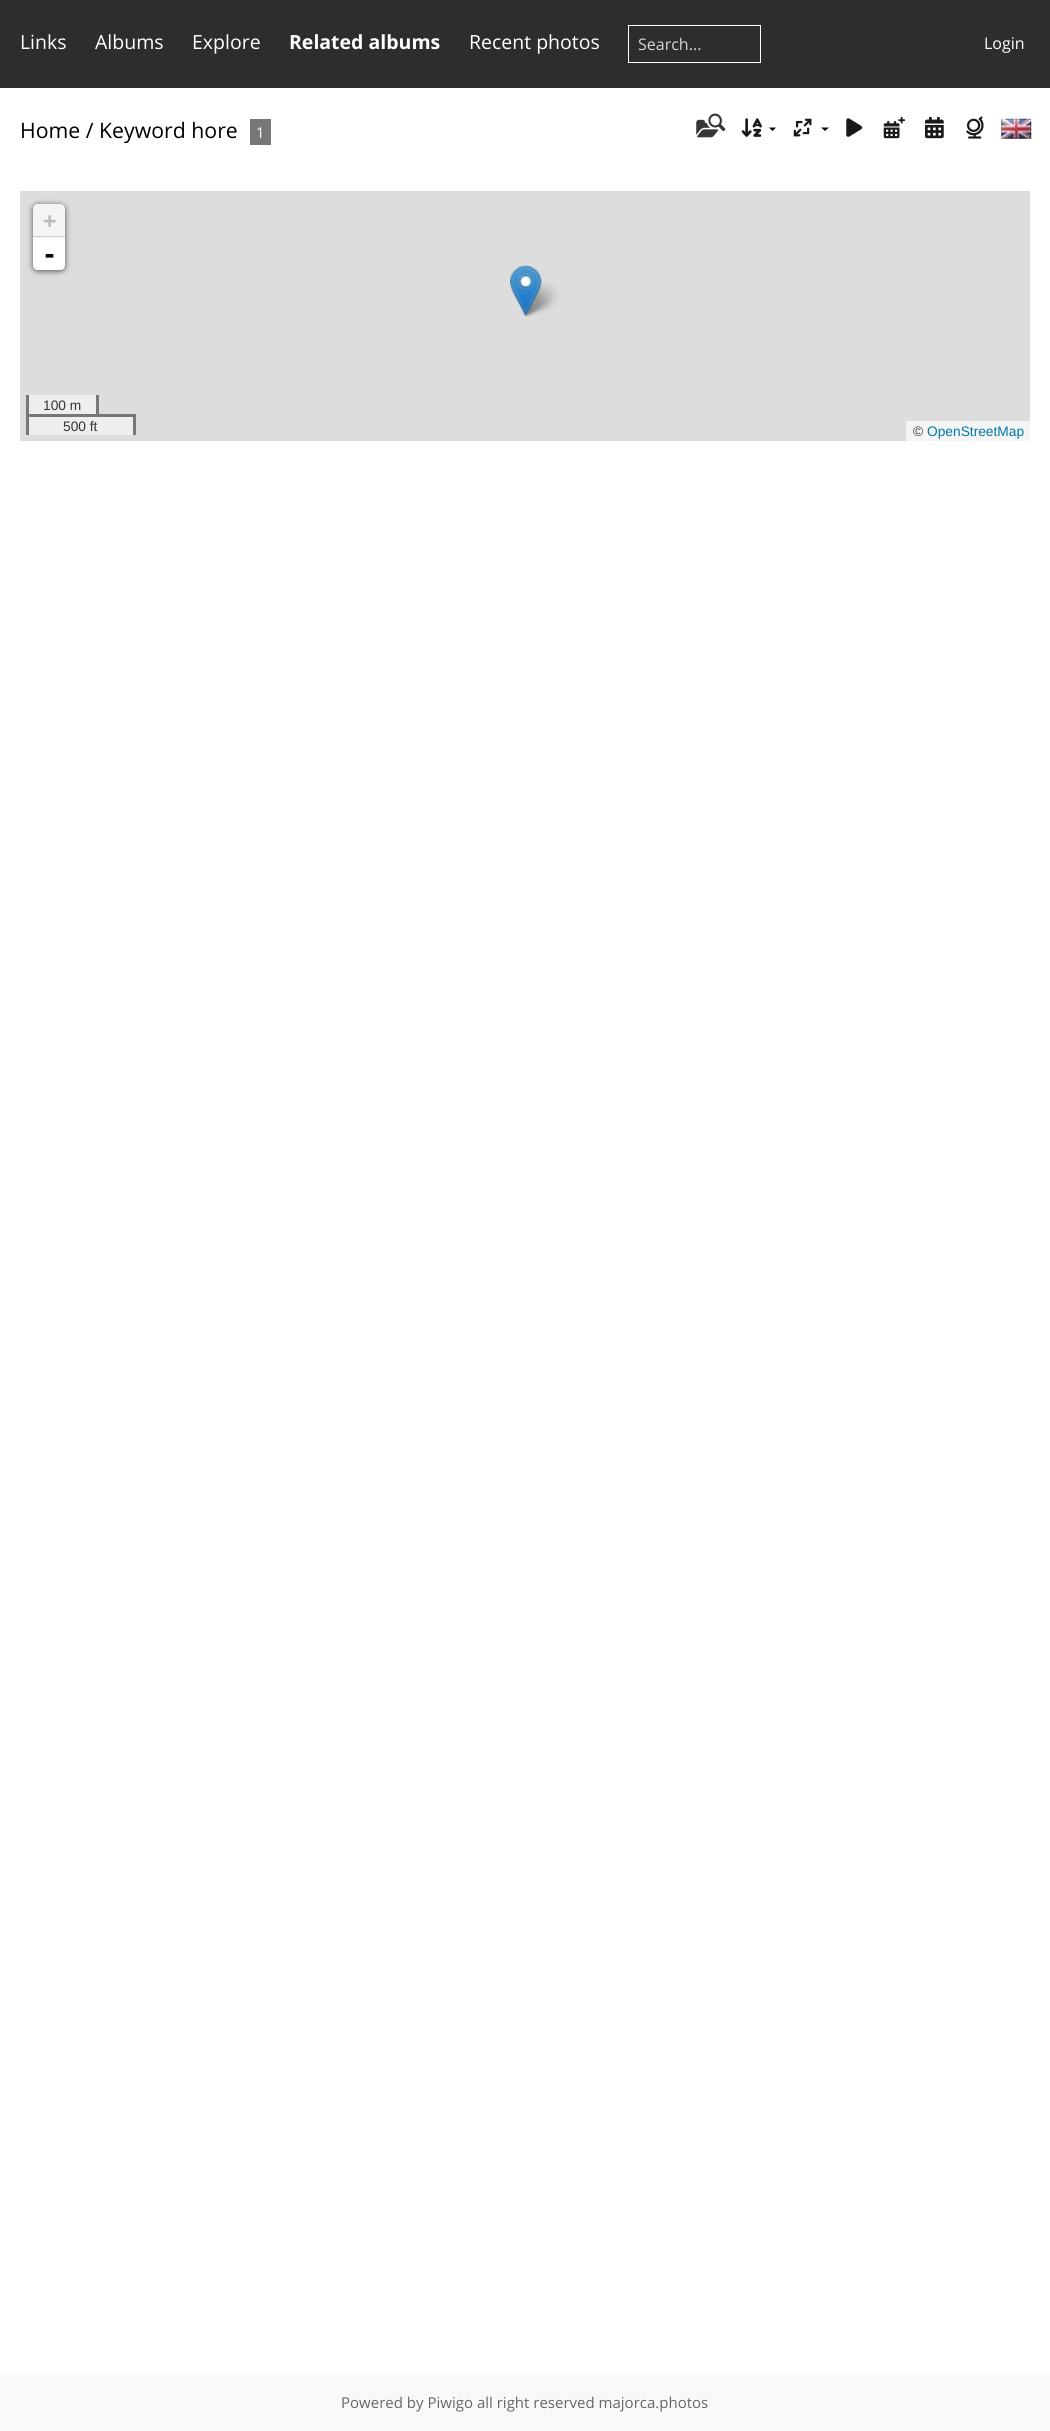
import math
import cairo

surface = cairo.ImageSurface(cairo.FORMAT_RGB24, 1050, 2431)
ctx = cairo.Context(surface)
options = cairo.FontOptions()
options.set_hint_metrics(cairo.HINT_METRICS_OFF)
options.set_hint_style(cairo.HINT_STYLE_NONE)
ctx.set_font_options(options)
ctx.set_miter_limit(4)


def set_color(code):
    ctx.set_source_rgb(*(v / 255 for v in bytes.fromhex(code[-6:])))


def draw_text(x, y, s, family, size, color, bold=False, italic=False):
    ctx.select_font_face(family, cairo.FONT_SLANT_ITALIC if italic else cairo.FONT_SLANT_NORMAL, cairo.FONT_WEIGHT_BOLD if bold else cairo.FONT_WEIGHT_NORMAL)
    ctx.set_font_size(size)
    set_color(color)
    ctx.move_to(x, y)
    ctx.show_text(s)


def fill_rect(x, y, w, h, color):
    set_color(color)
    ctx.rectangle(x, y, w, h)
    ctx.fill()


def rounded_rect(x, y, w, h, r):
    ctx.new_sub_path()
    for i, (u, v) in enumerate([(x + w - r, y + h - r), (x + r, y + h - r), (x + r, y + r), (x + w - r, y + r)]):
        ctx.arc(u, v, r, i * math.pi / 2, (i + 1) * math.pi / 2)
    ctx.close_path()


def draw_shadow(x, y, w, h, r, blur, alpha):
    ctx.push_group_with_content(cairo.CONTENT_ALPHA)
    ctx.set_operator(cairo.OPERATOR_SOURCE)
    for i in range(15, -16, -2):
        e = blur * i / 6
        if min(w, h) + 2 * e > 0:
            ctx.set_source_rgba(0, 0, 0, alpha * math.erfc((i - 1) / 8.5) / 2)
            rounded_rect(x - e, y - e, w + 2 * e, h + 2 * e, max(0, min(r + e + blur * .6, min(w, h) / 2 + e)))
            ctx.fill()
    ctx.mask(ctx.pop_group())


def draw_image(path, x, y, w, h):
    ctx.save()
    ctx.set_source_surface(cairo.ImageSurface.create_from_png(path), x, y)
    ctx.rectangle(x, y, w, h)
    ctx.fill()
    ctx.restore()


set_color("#ffffff")
ctx.paint()
fill_rect(0, 0, 1050, 88, "#2d2d2d")
draw_text(20, 49, "Links", "Open Sans", 19.5, "#ffffff")
draw_text(95, 49, "Albums", "Open Sans", 19.5, "#ffffff")
draw_text(192, 49, "Explore", "Open Sans", 19.5, "#ffffff")
draw_text(289, 49, "Related albums", "Open Sans", 19.5, "#ffffff", bold=True)
draw_text(469, 49, "Recent photos", "Open Sans", 19.5, "#ffffff")
ctx.rectangle(628.5, 25.5, 132, 37)
ctx.set_line_width(1)
ctx.stroke()
draw_text(638, 50, "Search...", "Open Sans", 16, "#d6d6d6")
draw_text(984, 49, "Login", "Open Sans", 16, "#ffffff")
draw_text(20, 138, "Home / Keyword hore", "Open Sans", 21.25, "#000000")
fill_rect(250, 119, 21, 26, "#777777")
draw_text(256, 138, "1", "Open Sans", 15, "#ffffff")
draw_image("assets/img1.png", 696, 113, 30, 25)
draw_image("assets/img2.png", 741, 118, 21, 19)
set_color("#000000")
ctx.new_path()
ctx.move_to(769, 127.5)
ctx.line_to(776, 127.5)
ctx.line_to(772.5, 131)
ctx.close_path()
ctx.move_to(821, 127.5)
ctx.line_to(829, 127.5)
ctx.line_to(825, 131)
ctx.close_path()
ctx.fill()
draw_image("assets/img3.png", 883, 116, 22, 23)
draw_image("assets/img4.png", 925, 116, 19, 23)
draw_image("assets/img5.png", 966, 116, 18, 23)
draw_image("assets/img6.png", 793, 118, 19, 19)
draw_image("assets/img7.png", 846, 118, 17, 19)
draw_image("assets/img8.png", 1001, 118, 31, 21)
fill_rect(20, 191, 1010, 250, "#dddddd")
fill_rect(29, 417, 104, 18, "#eeeeee")
set_color("#000000")
draw_shadow(33, 205, 32, 66, 5, 3, 0.65)
set_color("#f4f4f4")
ctx.new_path()
ctx.move_to(38, 204)
ctx.line_to(60, 204)
ctx.curve_to(63, 204, 65, 206, 65, 209)
ctx.line_to(65, 238)
ctx.line_to(33, 238)
ctx.line_to(33, 209)
ctx.curve_to(33, 206, 35, 204, 38, 204)
ctx.close_path()
ctx.fill()
fill_rect(33, 236, 32, 1, "#cccccc")
draw_text(43, 228, "+", "DejaVu Sans Mono", 22, "#bbbbbb", bold=True)
set_color("#ffffff")
ctx.new_path()
ctx.move_to(33, 238)
ctx.line_to(65, 238)
ctx.line_to(65, 265)
ctx.curve_to(65, 268, 63, 270, 60, 270)
ctx.line_to(38, 270)
ctx.curve_to(35, 270, 33, 268, 33, 265)
ctx.close_path()
ctx.fill()
draw_text(42, 263, "-", "DejaVu Sans Mono", 25, "#000000", bold=True)
fill_rect(29, 395, 67, 19, "#eeeeee")
fill_rect(96, 395, 3, 21, "#777777")
fill_rect(26, 395, 3, 21, "#777777")
draw_text(43, 410, "100 m", "Liberation Sans", 13.75, "#333333")
fill_rect(26, 414, 109, 3, "#777777")
fill_rect(133, 414, 3, 21, "#777777")
fill_rect(26, 414, 3, 21, "#777777")
draw_text(63, 431, "500 ft", "Liberation Sans", 13.75, "#333333")
fill_rect(906, 421, 124, 20, "#f5f5f5")
draw_text(913, 436, "©", "Liberation Sans", 13.75, "#333333")
draw_text(927, 436, "OpenStreetMap", "Liberation Sans", 13.75, "#0078a8")
draw_image("assets/img10.png", 521, 281, 38, 36)
draw_image("assets/img9.png", 510, 265, 32, 52)
fill_rect(0, 2373, 1050, 58, "#f9f9f9")
draw_text(341, 2408, "Powered by Piwigo all right reserved majorca.photos", "Open Sans", 15, "#666666")
surface.write_to_png("output.png")
